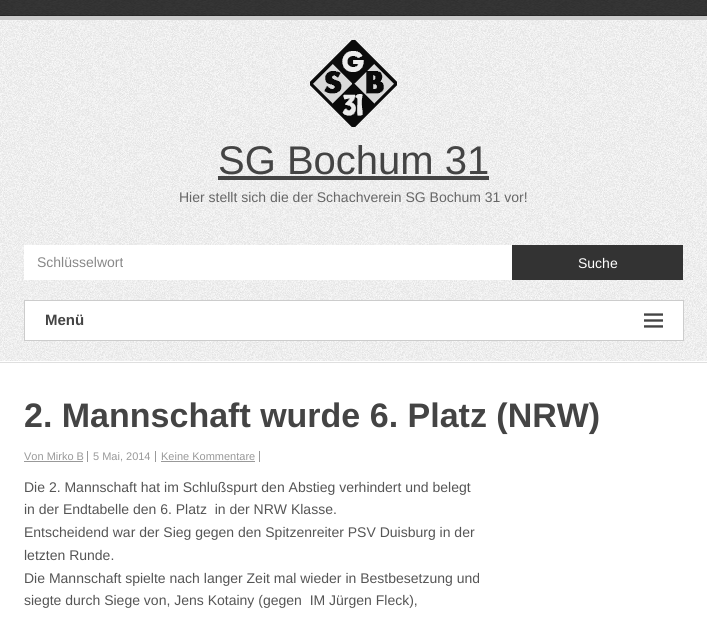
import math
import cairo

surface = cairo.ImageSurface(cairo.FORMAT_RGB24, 707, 618)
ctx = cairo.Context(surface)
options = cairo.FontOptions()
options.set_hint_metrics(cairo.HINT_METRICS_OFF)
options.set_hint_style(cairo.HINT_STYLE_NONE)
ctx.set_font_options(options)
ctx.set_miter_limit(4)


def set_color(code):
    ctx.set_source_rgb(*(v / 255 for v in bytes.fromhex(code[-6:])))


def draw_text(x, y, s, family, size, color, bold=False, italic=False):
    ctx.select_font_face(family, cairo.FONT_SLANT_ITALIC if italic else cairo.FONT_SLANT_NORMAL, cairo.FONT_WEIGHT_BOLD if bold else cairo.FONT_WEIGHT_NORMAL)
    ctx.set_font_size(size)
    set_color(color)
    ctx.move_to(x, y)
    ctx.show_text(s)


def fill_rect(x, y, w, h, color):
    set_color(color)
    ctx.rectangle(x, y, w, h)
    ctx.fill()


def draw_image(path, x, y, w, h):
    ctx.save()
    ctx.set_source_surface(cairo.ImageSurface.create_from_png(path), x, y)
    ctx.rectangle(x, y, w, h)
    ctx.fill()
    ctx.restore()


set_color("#ffffff")
ctx.paint()
draw_image("assets/img1.png", 0, 20, 707, 341)
fill_rect(0, 362, 707, 1, "#dfdfdf")
draw_image("assets/img2.png", 0, 0, 707, 16)
fill_rect(0, 16, 707, 4, "#cccccc")
draw_image("assets/img3.png", 310, 40, 87, 87)
draw_text(218, 174, "SG Bochum 31", "Liberation Sans", 40, "#444444")
fill_rect(218, 176, 271, 4, "#444444")
draw_text(179, 202, "Hier stellt sich die der Schachverein SG Bochum 31 vor!", "Liberation Sans", 14, "#666666")
fill_rect(24, 245, 488, 35, "#ffffff")
draw_text(37, 267, "Schlüsselwort", "Liberation Sans", 14, "#888888")
fill_rect(512, 245, 171, 35, "#333333")
draw_text(578, 268, "Suche", "Liberation Sans", 14, "#ffffff")
ctx.rectangle(24.5, 300.5, 659, 40)
ctx.fill_preserve()
set_color("#cccccc")
ctx.set_line_width(1)
ctx.stroke()
draw_text(45, 325, "Menü", "Liberation Sans", 15, "#444444", bold=True)
draw_image("assets/img4.png", 644, 313, 19, 15)
draw_text(24, 427, "2. Mannschaft wurde 6. Platz (NRW)", "Liberation Sans", 34, "#444444", bold=True)
fill_rect(87, 451, 1, 11, "#999999")
draw_text(24, 460, "Von Mirko B", "Liberation Sans", 11, "#999999")
fill_rect(24, 461, 59, 1, "#999999")
fill_rect(155, 451, 1, 11, "#999999")
draw_text(93, 460, "5 Mai, 2014", "Liberation Sans", 11, "#999999")
fill_rect(259, 451, 1, 11, "#999999")
draw_text(161, 460, "Keine Kommentare", "Liberation Sans", 11, "#999999")
fill_rect(161, 461, 94, 1, "#999999")
draw_text(24, 492, "Die 2. Mannschaft hat im Schlußspurt den Abstieg verhindert und belegt", "Liberation Sans", 14, "#555555")
draw_text(24, 514, "in der Endtabelle den 6. Platz  in der NRW Klasse.", "Liberation Sans", 14, "#555555")
draw_text(24, 537, "Entscheidend war der Sieg gegen den Spitzenreiter PSV Duisburg in der", "Liberation Sans", 14, "#555555")
draw_text(24, 560, "letzten Runde.", "Liberation Sans", 14, "#555555")
draw_text(24, 583, "Die Mannschaft spielte nach langer Zeit mal wieder in Bestbesetzung und", "Liberation Sans", 14, "#555555")
draw_text(24, 605, "siegte durch Siege von, Jens Kotainy (gegen  IM Jürgen Fleck),", "Liberation Sans", 14, "#555555")
surface.write_to_png("output.png")
